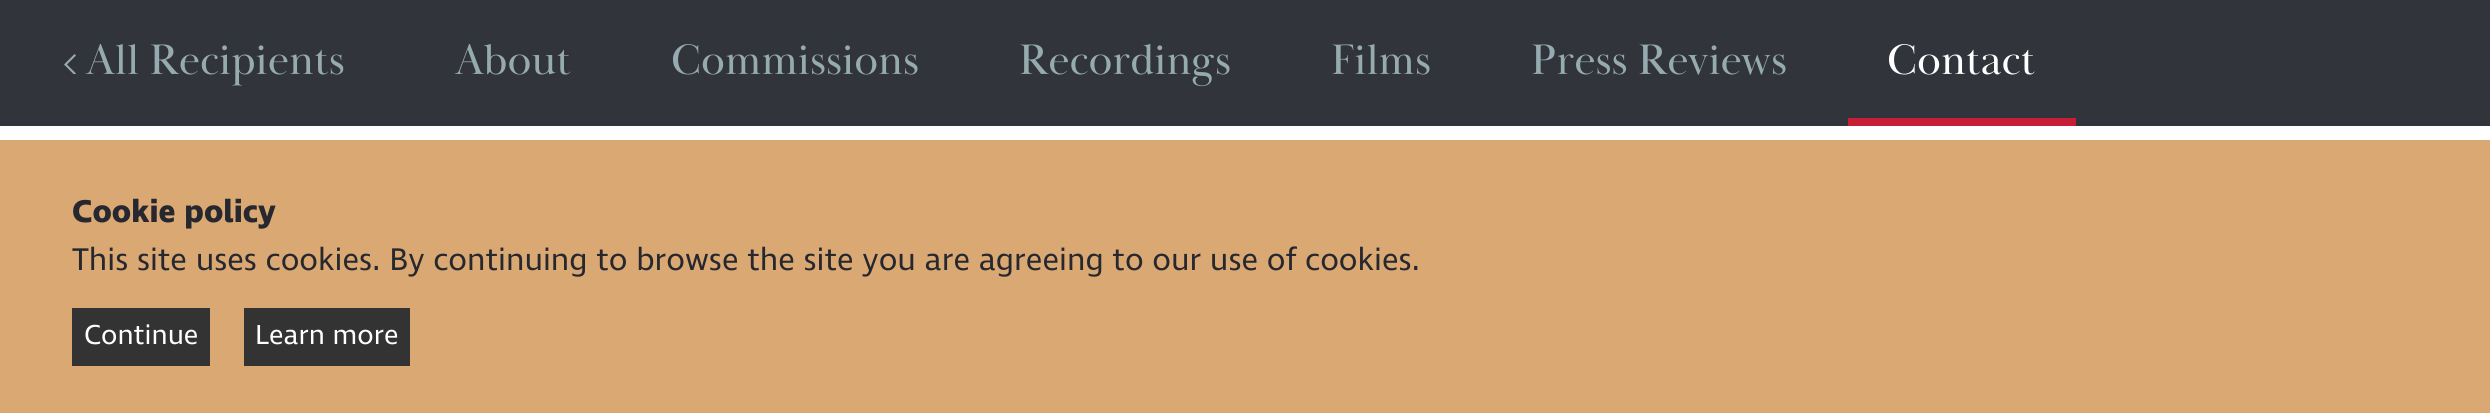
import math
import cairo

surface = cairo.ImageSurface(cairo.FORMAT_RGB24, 2490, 413)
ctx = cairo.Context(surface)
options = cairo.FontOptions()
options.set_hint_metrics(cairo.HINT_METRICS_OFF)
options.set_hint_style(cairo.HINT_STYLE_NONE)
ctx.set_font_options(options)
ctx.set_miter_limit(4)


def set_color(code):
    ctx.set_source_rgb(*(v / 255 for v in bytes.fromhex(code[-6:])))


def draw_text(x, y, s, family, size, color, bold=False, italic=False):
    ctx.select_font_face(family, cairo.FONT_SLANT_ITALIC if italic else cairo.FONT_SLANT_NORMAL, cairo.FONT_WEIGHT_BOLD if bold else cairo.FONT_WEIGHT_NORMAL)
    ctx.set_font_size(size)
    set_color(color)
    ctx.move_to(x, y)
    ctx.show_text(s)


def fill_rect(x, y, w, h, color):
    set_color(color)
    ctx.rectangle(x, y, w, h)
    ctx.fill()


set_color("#ffffff")
ctx.paint()
fill_rect(0, 0, 2490, 126, "#32343b")
ctx.save()
ctx.rectangle(64, 54, 12, 20)
ctx.clip()
set_color("#96abb0")
ctx.new_path()
ctx.move_to(65.5, 66)
ctx.line_to(74.5, 75)
ctx.line_to(76, 73.5)
ctx.line_to(67, 64.5)
ctx.line_to(76, 55.5)
ctx.line_to(74.5, 54)
ctx.line_to(64, 64.5)
ctx.close_path()
ctx.fill()
ctx.restore()
draw_text(86, 74, "All Recipients", "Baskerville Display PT", 44, "#96abb0")
draw_text(455, 74, "About", "Baskerville Display PT", 44, "#96abb0")
draw_text(671, 74, "Commissions", "Baskerville Display PT", 44, "#96abb0")
draw_text(1019, 74, "Recordings", "Baskerville Display PT", 44, "#96abb0")
draw_text(1331, 74, "Films", "Baskerville Display PT", 44, "#96abb0")
draw_text(1531, 74, "Press Reviews", "Baskerville Display PT", 44, "#96abb0")
fill_rect(1848, 118, 228, 8, "#c71e38")
draw_text(1887, 74, "Contact", "Baskerville Display PT", 44, "#ffffff")
fill_rect(0, 140, 2490, 273, "#daa872")
draw_text(72, 222, "Cookie policy", "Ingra", 32, "#27282f", bold=True)
draw_text(72, 270, "This site uses cookies. By continuing to browse the site you are agreeing to our use of cookies.", "Ingra", 32, "#27282f")
fill_rect(72, 308, 138, 58, "#333333")
draw_text(84, 344, "Continue", "Ingra", 28, "#ffffff")
fill_rect(244, 308, 166, 58, "#333333")
draw_text(255, 344, "Learn more", "Ingra", 28, "#ffffff")
surface.write_to_png("output.png")
